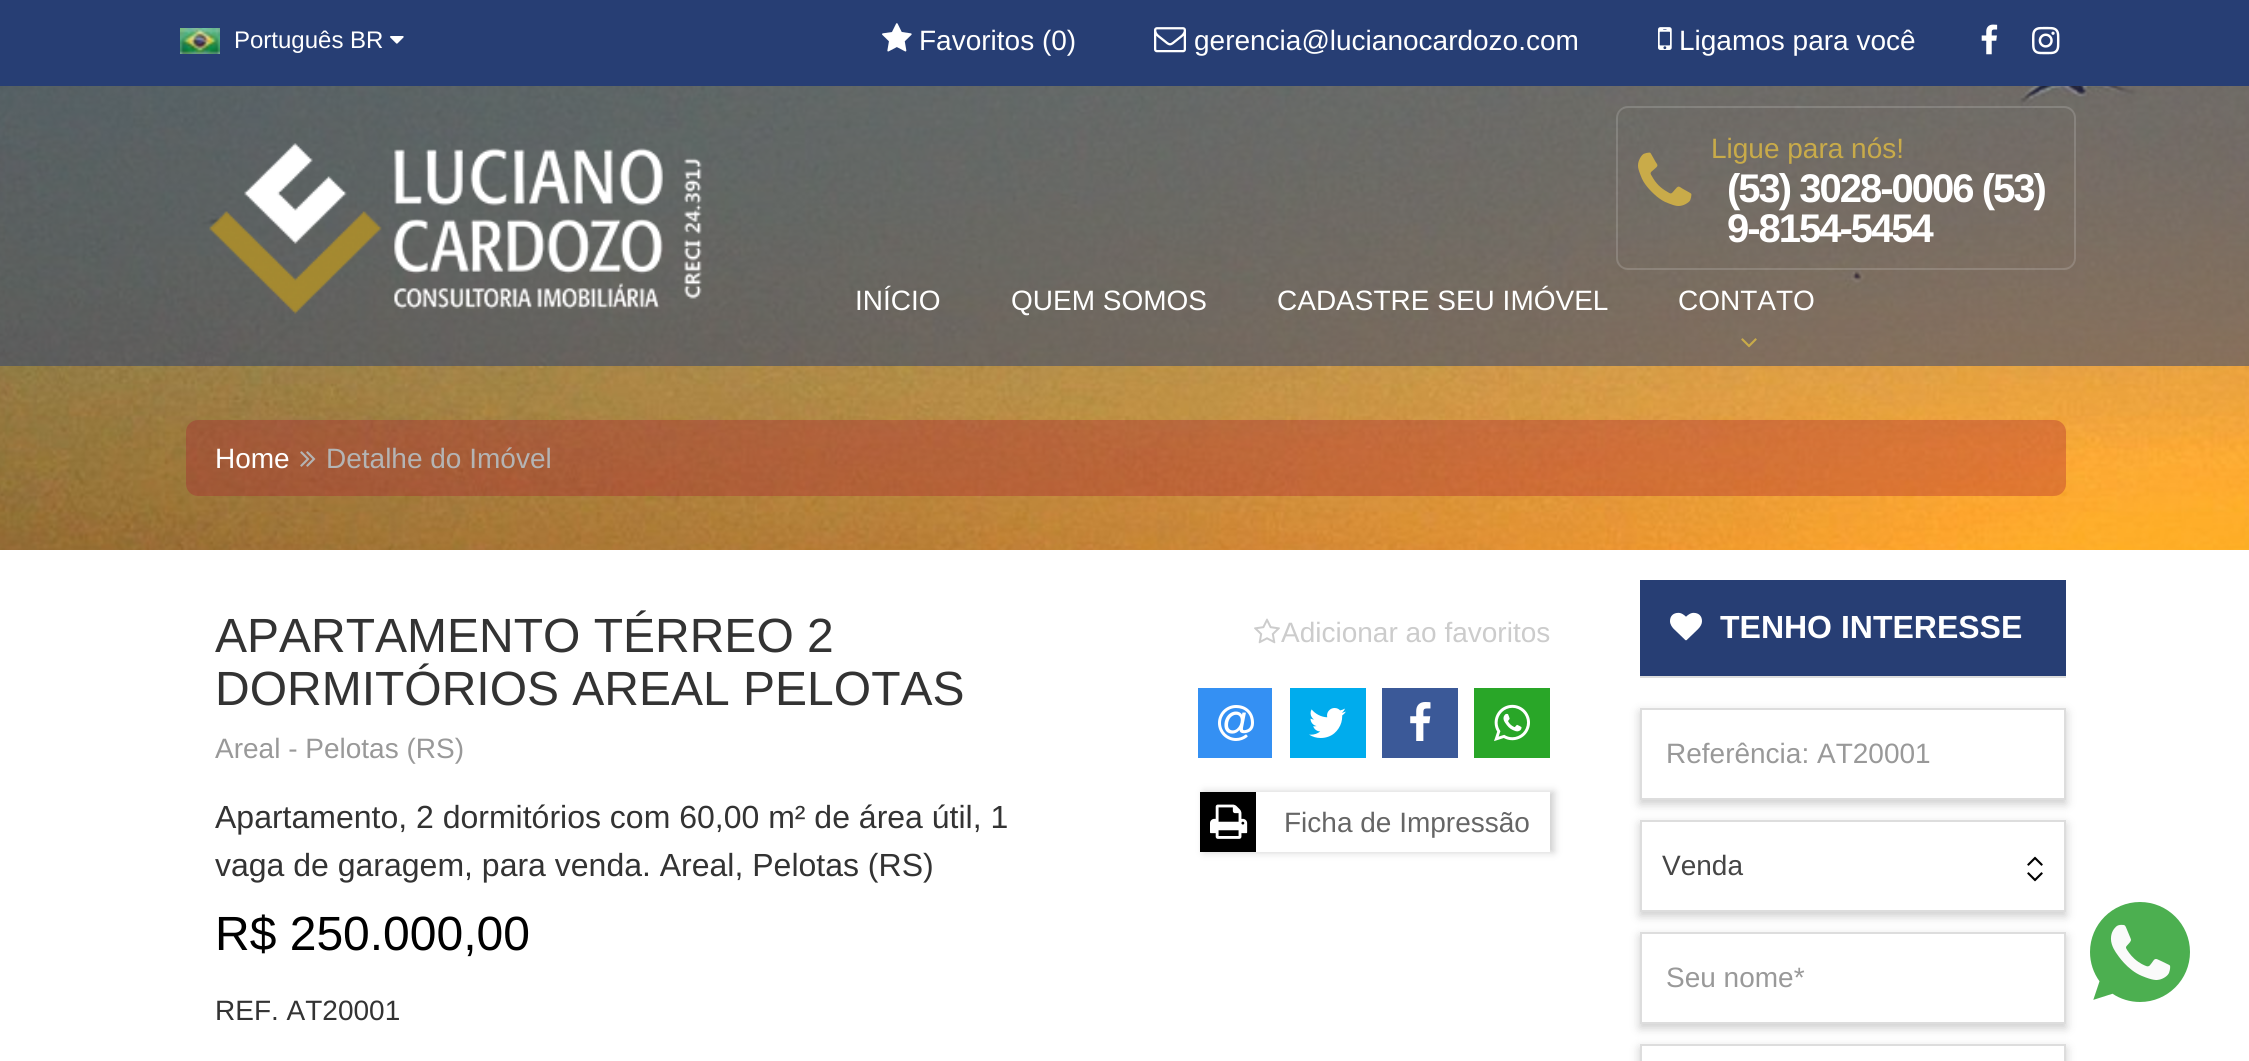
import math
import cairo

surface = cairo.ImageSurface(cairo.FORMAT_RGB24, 2249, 1061)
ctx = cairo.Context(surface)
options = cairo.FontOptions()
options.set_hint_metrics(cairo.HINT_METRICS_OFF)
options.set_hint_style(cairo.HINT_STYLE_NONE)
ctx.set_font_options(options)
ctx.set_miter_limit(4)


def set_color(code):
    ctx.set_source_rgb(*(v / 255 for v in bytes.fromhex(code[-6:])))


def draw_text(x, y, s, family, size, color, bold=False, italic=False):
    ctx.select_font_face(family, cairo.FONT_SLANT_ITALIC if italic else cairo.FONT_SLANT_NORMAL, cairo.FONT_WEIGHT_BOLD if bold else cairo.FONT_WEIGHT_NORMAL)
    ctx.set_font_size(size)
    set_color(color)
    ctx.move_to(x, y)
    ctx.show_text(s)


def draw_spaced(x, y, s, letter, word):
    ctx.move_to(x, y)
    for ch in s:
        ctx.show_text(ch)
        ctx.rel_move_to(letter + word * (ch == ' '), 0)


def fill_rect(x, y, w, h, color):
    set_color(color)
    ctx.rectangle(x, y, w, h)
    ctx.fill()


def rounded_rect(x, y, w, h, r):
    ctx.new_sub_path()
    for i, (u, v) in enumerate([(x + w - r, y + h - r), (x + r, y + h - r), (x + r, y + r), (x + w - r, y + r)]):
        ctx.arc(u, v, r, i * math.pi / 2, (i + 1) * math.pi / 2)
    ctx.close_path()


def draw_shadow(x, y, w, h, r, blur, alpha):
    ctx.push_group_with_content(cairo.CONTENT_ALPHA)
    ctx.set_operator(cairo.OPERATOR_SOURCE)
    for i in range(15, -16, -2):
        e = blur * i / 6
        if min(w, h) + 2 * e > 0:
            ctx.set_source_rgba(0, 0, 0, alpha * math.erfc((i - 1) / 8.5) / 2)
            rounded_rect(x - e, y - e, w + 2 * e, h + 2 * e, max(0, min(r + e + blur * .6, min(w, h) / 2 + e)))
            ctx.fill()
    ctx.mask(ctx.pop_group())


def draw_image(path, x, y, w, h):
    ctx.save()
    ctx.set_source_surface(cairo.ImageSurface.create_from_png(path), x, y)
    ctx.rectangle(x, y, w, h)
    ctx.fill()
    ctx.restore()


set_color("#ffffff")
ctx.paint()
draw_image("assets/img1.png", 0, 86, 2249, 464)
fill_rect(0, 0, 2249, 86, "#273e74")
draw_image("assets/img2.png", 180, 28, 40, 26)
draw_text(234, 48, "Português BR", "Liberation Sans", 24, "#ffffff")
draw_image("assets/img3.png", 390, 36, 14, 8)
draw_image("assets/img4.png", 882, 23, 30, 29)
draw_text(919, 50, "Favoritos (0)", "Liberation Sans", 28, "#ffffff")
draw_image("assets/img5.png", 1154, 27, 32, 26)
draw_text(1194, 50, "gerencia@lucianocardozo.com", "Liberation Sans", 28, "#ffffff")
draw_image("assets/img6.png", 1658, 27, 14, 23)
draw_text(1679, 50, "Ligamos para você", "Liberation Sans", 28, "#ffffff")
draw_image("assets/img7.png", 1981, 24, 17, 31)
draw_image("assets/img8.png", 2032, 26, 28, 29)
ctx.set_source_rgba(0.153, 0.243, 0.455, 0.5)
ctx.rectangle(0, 86, 2249, 280)
ctx.fill()
draw_image("assets/img9.png", 209, 143, 493, 171)
draw_text(855, 310, "INÍCIO", "Liberation Sans", 28, "#ffffff")
draw_text(1011, 310, "QUEM SOMOS", "Liberation Sans", 28, "#ffffff")
draw_text(1277, 310, "CADASTRE SEU IMÓVEL", "Liberation Sans", 28, "#ffffff")
draw_text(1678, 310, "CONTATO", "Liberation Sans", 28, "#ffffff")
draw_image("assets/img10.png", 1741, 338, 16, 10)
rounded_rect(1617, 107, 458, 162, 11)
ctx.set_source_rgba(0.933, 0.933, 0.933, 0.18)
ctx.stroke()
draw_image("assets/img11.png", 1638, 152, 54, 54)
draw_text(1711, 158, "Ligue para nós!", "Liberation Sans", 28, "#c9ab49")
ctx.select_font_face("Liberation Sans", cairo.FONT_SLANT_NORMAL, cairo.FONT_WEIGHT_BOLD)
ctx.set_font_size(40)
set_color("#ffffff")
draw_spaced(1727, 202, "(53) 3028-0006 (53)", -2, 0)
draw_spaced(1727, 242, "9-8154-5454", -2, 0)
ctx.set_source_rgba(0.675, 0.11, 0.188, 0.34)
rounded_rect(186, 420, 1880, 76, 12)
ctx.fill()
draw_text(215, 468, "Home", "Liberation Sans", 28, "#ffffff")
draw_image("assets/img12.png", 300, 451, 16, 16)
draw_text(326, 468, "Detalhe do Imóvel", "Liberation Sans", 28, "#b4b4b4")
draw_text(215, 652, "APARTAMENTO TÉRREO 2", "Liberation Sans", 48, "#333333")
draw_text(215, 705, "DORMITÓRIOS AREAL PELOTAS", "Liberation Sans", 48, "#333333")
draw_text(215, 758, "Areal - Pelotas (RS)", "Liberation Sans", 28, "#999999")
draw_text(215, 828, "Apartamento, 2 dormitórios com 60,00 m² de área útil, 1", "Liberation Sans", 32, "#333333")
draw_text(215, 876, "vaga de garagem, para venda. Areal, Pelotas (RS)", "Liberation Sans", 32, "#333333")
draw_text(215, 950, "R$ 250.000,00", "Liberation Sans", 48, "#000000")
draw_text(215, 1020, "REF. AT20001", "Liberation Sans", 28, "#333333")
draw_image("assets/img13.png", 1254, 618, 26, 26)
draw_text(1281, 642, "Adicionar ao favoritos", "Liberation Sans", 28, "#cccccc")
fill_rect(1198, 688, 74, 70, "#3490f3")
draw_image("assets/img14.png", 1218, 705, 36, 36)
fill_rect(1290, 688, 76, 70, "#00aced")
draw_image("assets/img15.png", 1309, 708, 37, 30)
fill_rect(1382, 688, 76, 70, "#3b5998")
draw_image("assets/img16.png", 1410, 702, 21, 39)
fill_rect(1474, 688, 76, 70, "#29a628")
draw_image("assets/img17.png", 1494, 704, 36, 38)
ctx.save()
ctx.set_fill_rule(cairo.FILL_RULE_EVEN_ODD)
ctx.new_path()
ctx.move_to(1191, 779)
ctx.line_to(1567, 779)
ctx.line_to(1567, 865)
ctx.line_to(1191, 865)
ctx.close_path()
ctx.move_to(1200, 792)
ctx.line_to(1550, 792)
ctx.line_to(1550, 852)
ctx.line_to(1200, 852)
ctx.close_path()
ctx.clip()
set_color("#cecece")
draw_shadow(1204, 792, 350, 60, 0, 4, 1)
ctx.restore()
fill_rect(1200, 792, 56, 60, "#000000")
draw_image("assets/img18.png", 1210, 804, 38, 35)
draw_text(1284, 832, "Ficha de Impressão", "Liberation Sans", 28, "#666666")
fill_rect(1640, 580, 426, 96, "#273e74")
draw_image("assets/img19.png", 1670, 612, 32, 29)
draw_text(1720, 638, "TENHO INTERESSE", "Liberation Sans", 32, "#ffffff", bold=True)
fill_rect(1640, 676, 426, 2, "#dddddd")
ctx.save()
ctx.set_fill_rule(cairo.FILL_RULE_EVEN_ODD)
ctx.new_path()
ctx.move_to(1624, 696)
ctx.line_to(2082, 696)
ctx.line_to(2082, 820)
ctx.line_to(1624, 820)
ctx.close_path()
ctx.move_to(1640, 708)
ctx.line_to(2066, 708)
ctx.line_to(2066, 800)
ctx.line_to(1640, 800)
ctx.close_path()
ctx.clip()
set_color("#000000")
draw_shadow(1640, 712, 426, 92, 0, 5, 0.2)
ctx.restore()
ctx.rectangle(1641, 709, 424, 90)
ctx.stroke()
draw_text(1666, 763, "Referência: AT20001", "Liberation Sans", 28, "#999999")
ctx.save()
ctx.set_fill_rule(cairo.FILL_RULE_EVEN_ODD)
ctx.new_path()
ctx.move_to(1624, 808)
ctx.line_to(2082, 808)
ctx.line_to(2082, 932)
ctx.line_to(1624, 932)
ctx.close_path()
ctx.move_to(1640, 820)
ctx.line_to(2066, 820)
ctx.line_to(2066, 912)
ctx.line_to(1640, 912)
ctx.close_path()
ctx.clip()
set_color("#000000")
draw_shadow(1640, 824, 426, 92, 0, 5, 0.2)
ctx.restore()
ctx.rectangle(1641, 821, 424, 90)
set_color("#dddddd")
ctx.stroke()
draw_text(1662, 875, "Venda", "Liberation Sans", 28, "#464646")
draw_image("assets/img20.png", 2027, 856, 16, 10)
draw_image("assets/img21.png", 2027, 872, 16, 10)
ctx.save()
ctx.set_fill_rule(cairo.FILL_RULE_EVEN_ODD)
ctx.new_path()
ctx.move_to(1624, 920)
ctx.line_to(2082, 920)
ctx.line_to(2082, 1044)
ctx.line_to(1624, 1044)
ctx.close_path()
ctx.move_to(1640, 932)
ctx.line_to(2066, 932)
ctx.line_to(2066, 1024)
ctx.line_to(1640, 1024)
ctx.close_path()
ctx.clip()
set_color("#000000")
draw_shadow(1640, 936, 426, 92, 0, 5, 0.2)
ctx.restore()
ctx.rectangle(1641, 933, 424, 90)
set_color("#dddddd")
ctx.stroke()
draw_text(1666, 987, "Seu nome*", "Liberation Sans", 28, "#999999")
ctx.save()
ctx.set_fill_rule(cairo.FILL_RULE_EVEN_ODD)
ctx.new_path()
ctx.move_to(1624, 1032)
ctx.line_to(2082, 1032)
ctx.line_to(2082, 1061)
ctx.line_to(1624, 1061)
ctx.close_path()
ctx.move_to(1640, 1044)
ctx.line_to(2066, 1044)
ctx.line_to(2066, 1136)
ctx.line_to(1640, 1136)
ctx.close_path()
ctx.clip()
set_color("#000000")
draw_shadow(1640, 1048, 426, 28, 0, 5, 0.2)
ctx.restore()
ctx.rectangle(1641, 1045, 424, 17)
set_color("#dddddd")
ctx.stroke()
draw_image("assets/img22.png", 2090, 902, 100, 100)
surface.write_to_png("output.png")
